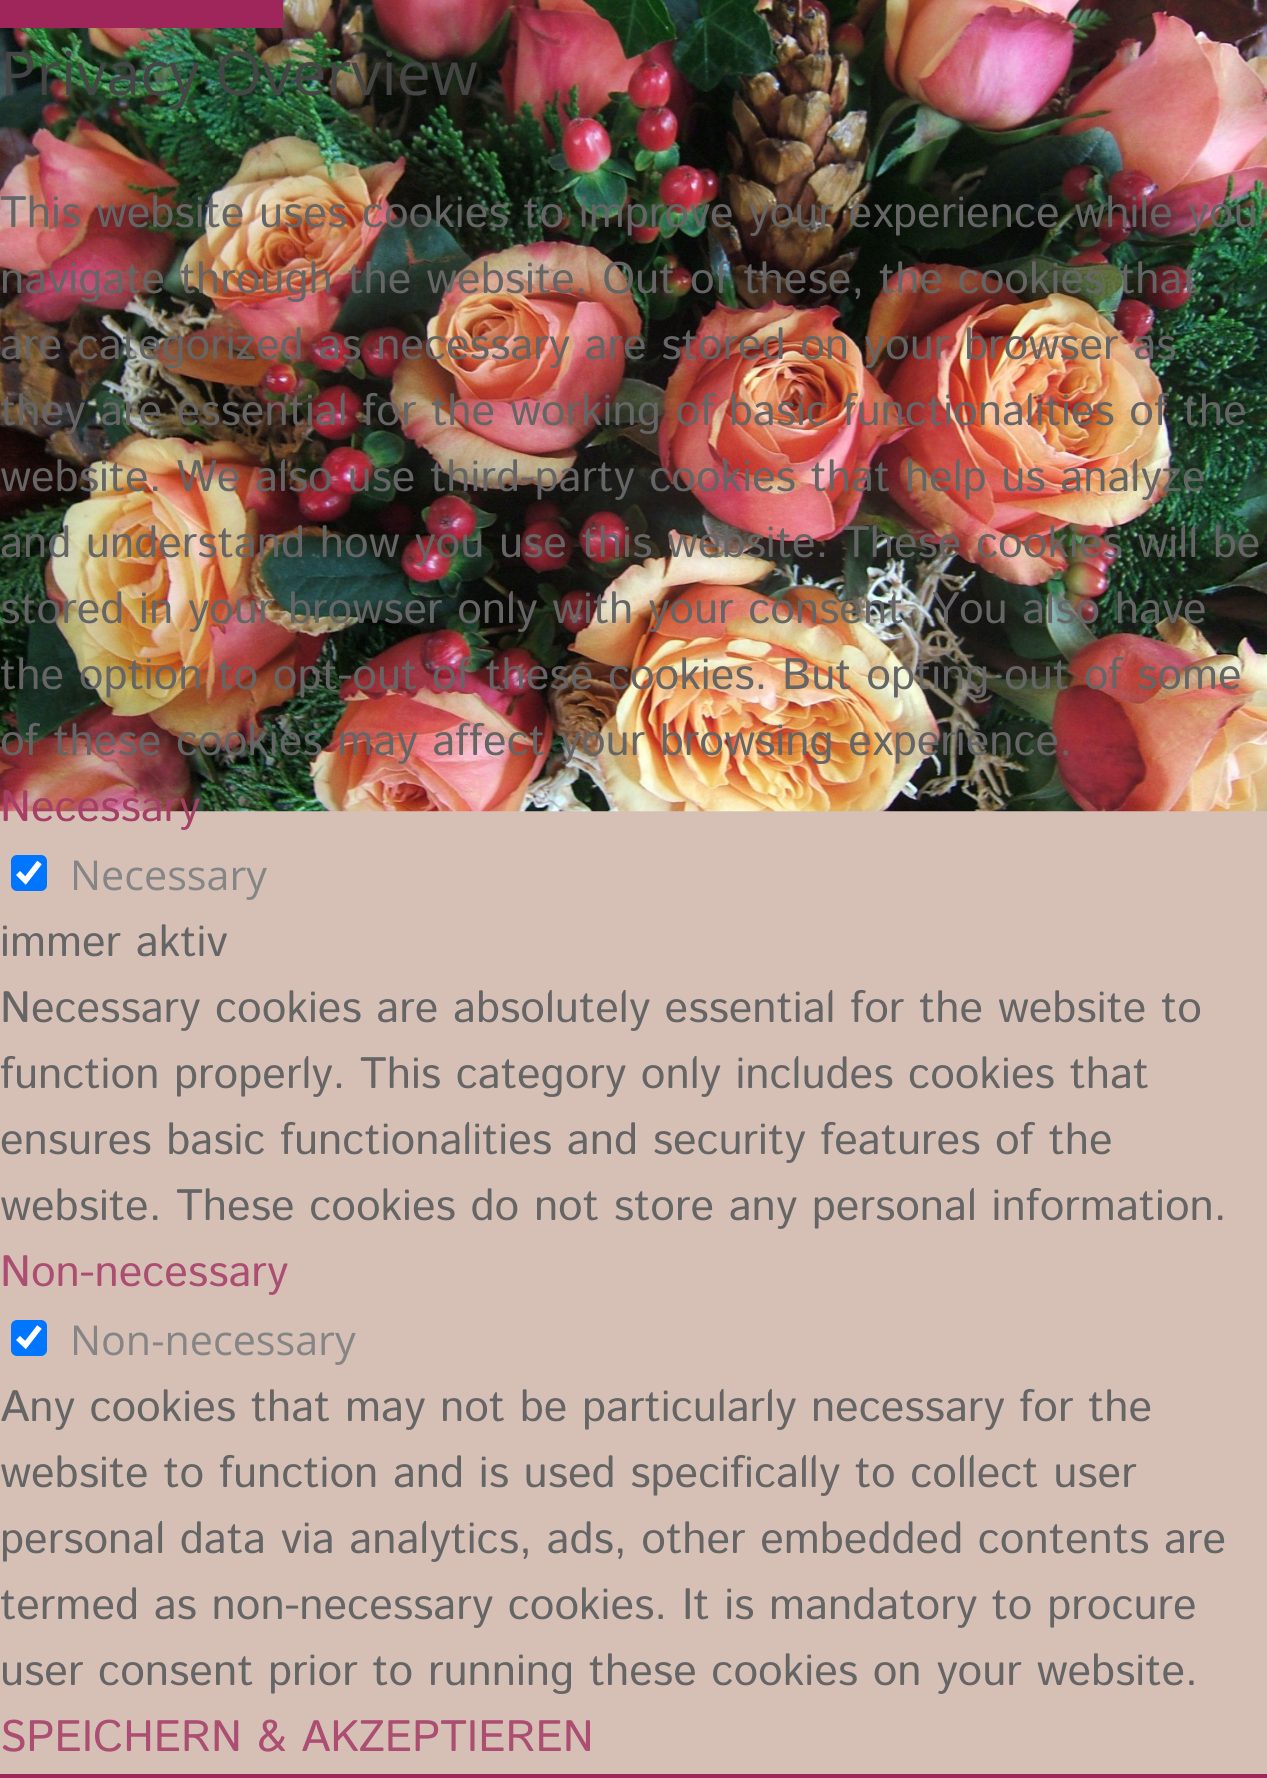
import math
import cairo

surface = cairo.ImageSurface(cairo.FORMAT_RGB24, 1267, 1778)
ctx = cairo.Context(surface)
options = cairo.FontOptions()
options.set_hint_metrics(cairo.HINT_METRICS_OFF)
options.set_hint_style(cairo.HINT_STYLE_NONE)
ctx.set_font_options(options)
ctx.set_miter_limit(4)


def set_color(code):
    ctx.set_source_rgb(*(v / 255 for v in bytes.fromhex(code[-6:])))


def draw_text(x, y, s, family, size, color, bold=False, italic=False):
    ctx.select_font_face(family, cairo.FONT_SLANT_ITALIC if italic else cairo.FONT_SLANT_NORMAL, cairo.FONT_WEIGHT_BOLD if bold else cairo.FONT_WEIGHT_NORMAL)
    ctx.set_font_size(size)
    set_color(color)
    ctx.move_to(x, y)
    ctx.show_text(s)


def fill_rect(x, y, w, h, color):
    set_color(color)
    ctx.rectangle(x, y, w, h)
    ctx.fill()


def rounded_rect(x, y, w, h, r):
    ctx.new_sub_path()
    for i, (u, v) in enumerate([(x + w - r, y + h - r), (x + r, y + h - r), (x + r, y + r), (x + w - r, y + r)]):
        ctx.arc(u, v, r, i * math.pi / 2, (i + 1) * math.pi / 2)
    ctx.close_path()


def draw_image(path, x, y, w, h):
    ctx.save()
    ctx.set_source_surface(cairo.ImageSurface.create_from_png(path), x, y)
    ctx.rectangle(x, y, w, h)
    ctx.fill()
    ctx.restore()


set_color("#d6c0b6")
ctx.paint()
draw_image("assets/img1.png", 0, 0, 1267, 812)
fill_rect(0, 1774, 1267, 4, "#9e265b")
fill_rect(0, 0, 283, 28, "#9e265b")
draw_text(0, 95, "Privacy Overview", "Open Sans", 60.5, "#454545")
draw_text(0, 227, "This website uses cookies to improve your experience while you", "Istok Web", 44, "#656565")
draw_text(0, 293, "navigate through the website. Out of these, the cookies that", "Istok Web", 44, "#656565")
draw_text(0, 359, "are categorized as necessary are stored on your browser as", "Istok Web", 44, "#656565")
draw_text(0, 425, "they are essential for the working of basic functionalities of the", "Istok Web", 44, "#656565")
draw_text(0, 491, "website. We also use third-party cookies that help us analyze", "Istok Web", 44, "#656565")
draw_text(0, 557, "and understand how you use this website. These cookies will be", "Istok Web", 44, "#656565")
draw_text(0, 623, "stored in your browser only with your consent. You also have", "Istok Web", 44, "#656565")
draw_text(0, 689, "the option to opt-out of these cookies. But opting out of some", "Istok Web", 44, "#656565")
draw_text(0, 755, "of these cookies may affect your browsing experience.", "Istok Web", 44, "#656565")
draw_text(0, 821, "Necessary", "Istok Web", 44, "#a63f66")
set_color("#0075ff")
rounded_rect(11, 855, 36, 36, 6)
ctx.fill()
ctx.new_path()
ctx.move_to(18, 873)
ctx.line_to(25.5, 880.5)
ctx.line_to(39.5, 862.5)
set_color("#ffffff")
ctx.set_line_width(5.7)
ctx.stroke()
draw_text(70, 890, "Necessary", "Open Sans", 41.25, "#858585")
draw_text(0, 956, "immer aktiv", "Istok Web", 44, "#656565")
draw_text(0, 1022, "Necessary cookies are absolutely essential for the website to", "Istok Web", 44, "#656565")
draw_text(0, 1088, "function properly. This category only includes cookies that", "Istok Web", 44, "#656565")
draw_text(0, 1154, "ensures basic functionalities and security features of the", "Istok Web", 44, "#656565")
draw_text(0, 1220, "website. These cookies do not store any personal information.", "Istok Web", 44, "#656565")
draw_text(0, 1286, "Non-necessary", "Istok Web", 44, "#ac4d72")
set_color("#0075ff")
rounded_rect(11, 1320, 36, 36, 6)
ctx.fill()
ctx.new_path()
ctx.move_to(18, 1338)
ctx.line_to(25.5, 1345)
ctx.line_to(39.5, 1327)
set_color("#ffffff")
ctx.stroke()
draw_text(70, 1355, "Non-necessary", "Open Sans", 41.25, "#858585")
draw_text(0, 1421, "Any cookies that may not be particularly necessary for the", "Istok Web", 44, "#656565")
draw_text(0, 1487, "website to function and is used specifically to collect user", "Istok Web", 44, "#656565")
draw_text(0, 1553, "personal data via analytics, ads, other embedded contents are", "Istok Web", 44, "#656565")
draw_text(0, 1619, "termed as non-necessary cookies. It is mandatory to procure", "Istok Web", 44, "#656565")
draw_text(0, 1685, "user consent prior to running these cookies on your website.", "Istok Web", 44, "#656565")
draw_text(0, 1751, "SPEICHERN & AKZEPTIEREN", "Istok Web", 44, "#ac4d72")
surface.write_to_png("output.png")
